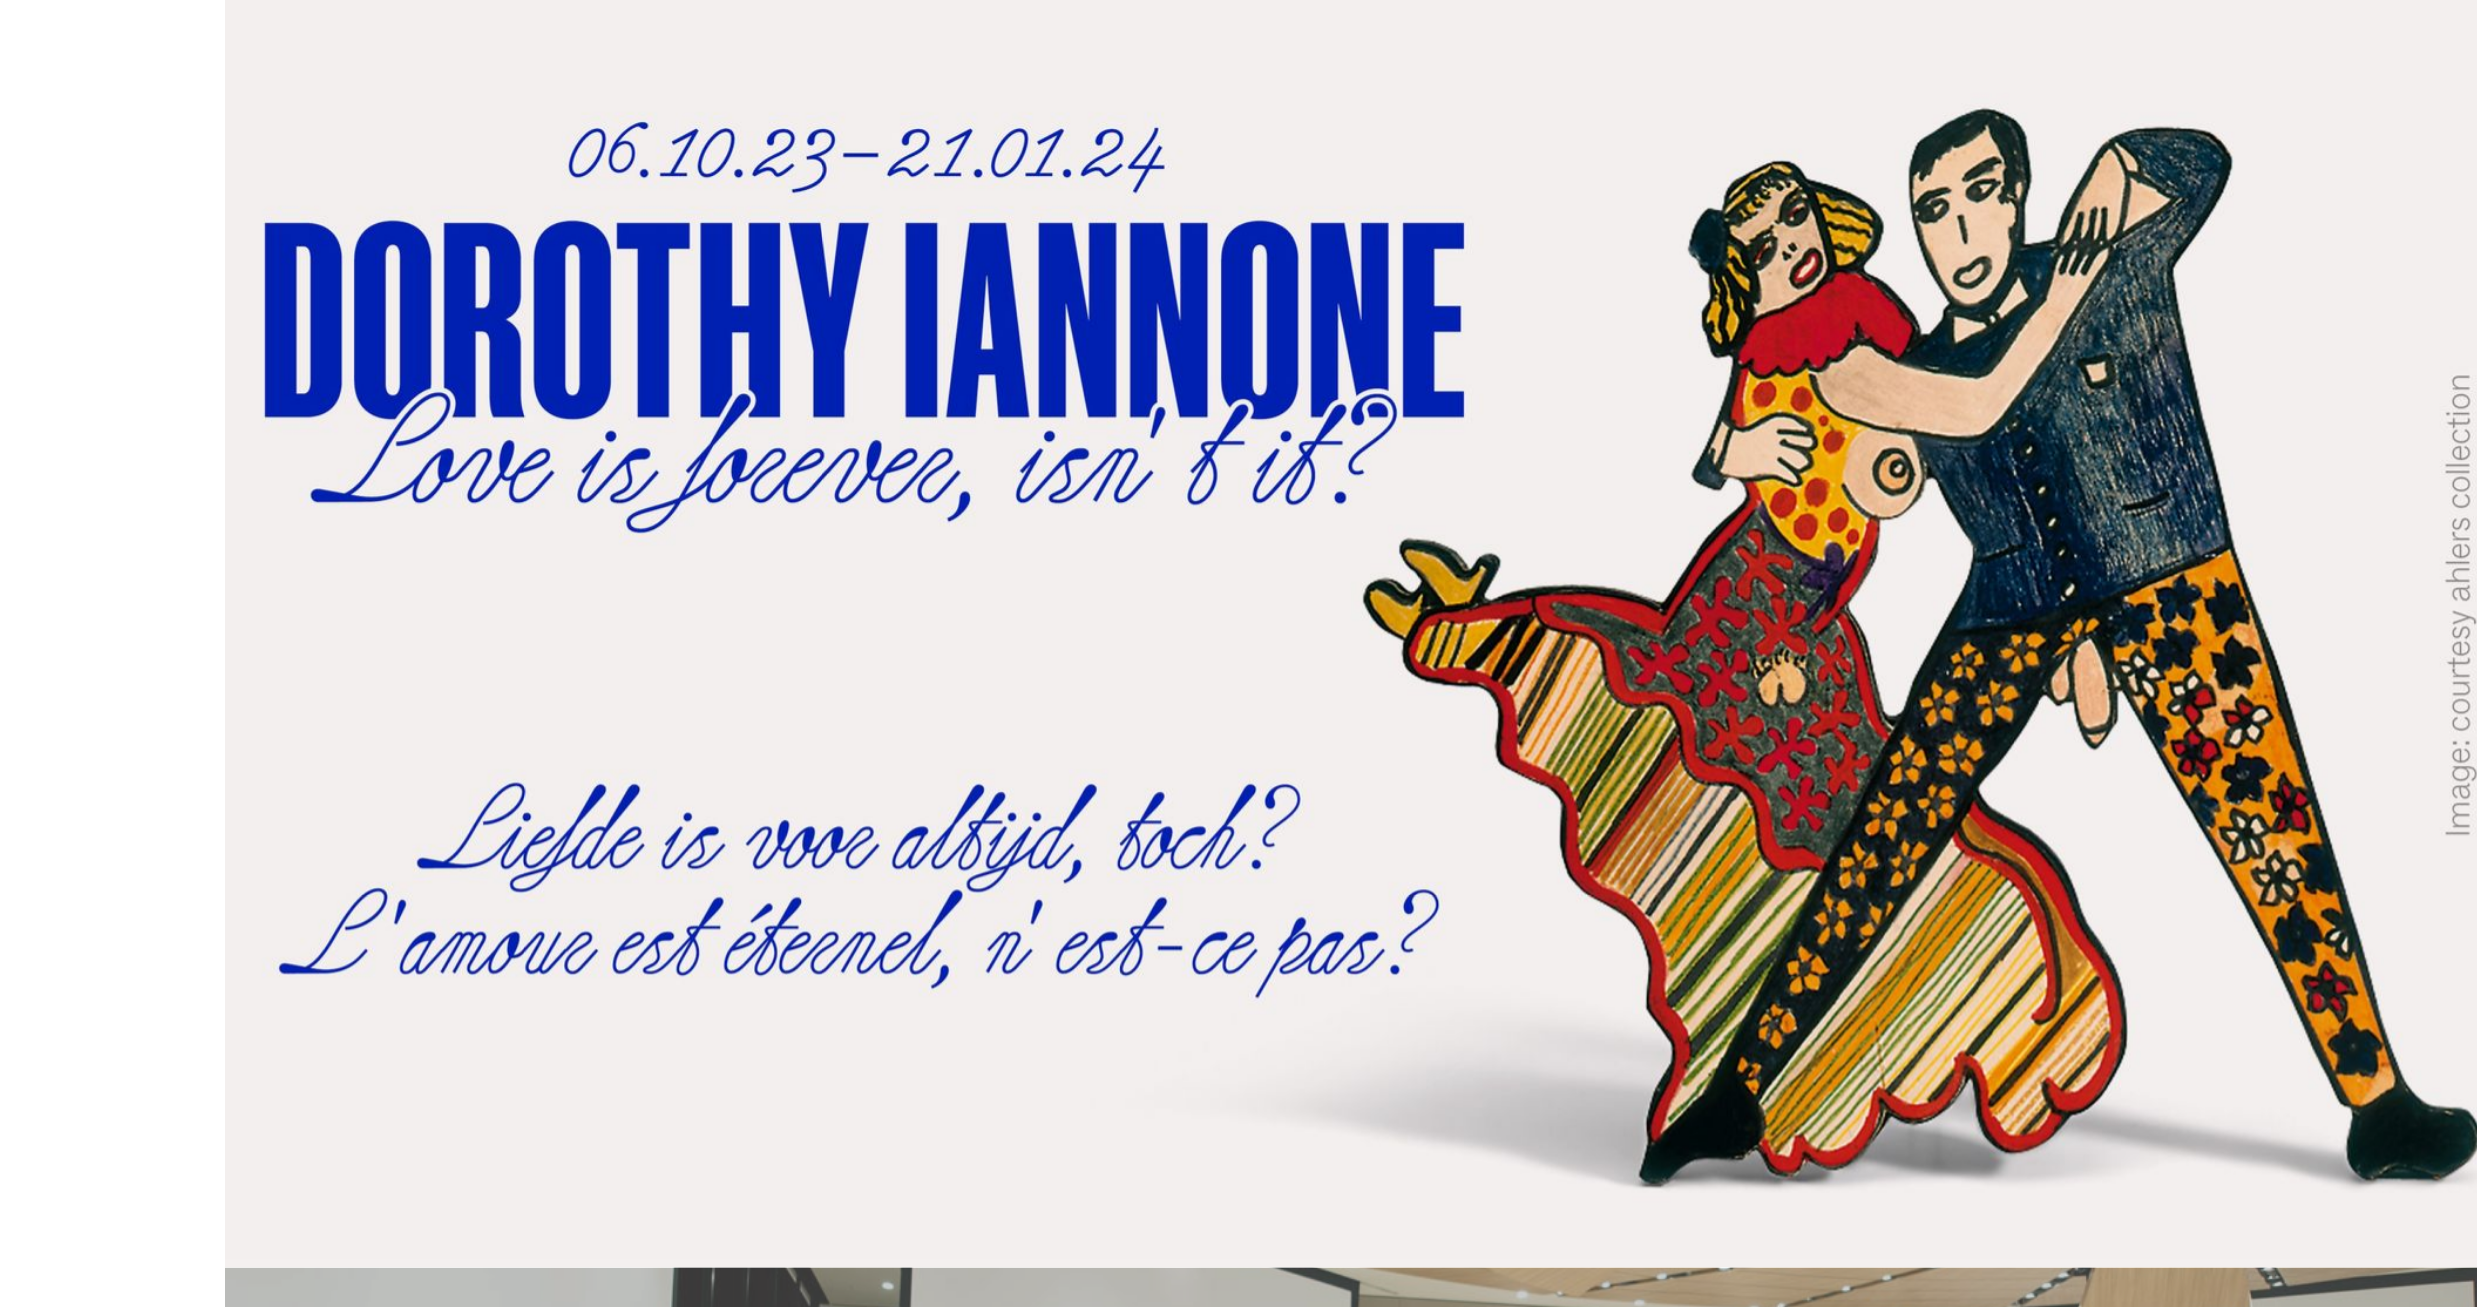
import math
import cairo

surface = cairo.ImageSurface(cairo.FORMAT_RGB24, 2477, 1307)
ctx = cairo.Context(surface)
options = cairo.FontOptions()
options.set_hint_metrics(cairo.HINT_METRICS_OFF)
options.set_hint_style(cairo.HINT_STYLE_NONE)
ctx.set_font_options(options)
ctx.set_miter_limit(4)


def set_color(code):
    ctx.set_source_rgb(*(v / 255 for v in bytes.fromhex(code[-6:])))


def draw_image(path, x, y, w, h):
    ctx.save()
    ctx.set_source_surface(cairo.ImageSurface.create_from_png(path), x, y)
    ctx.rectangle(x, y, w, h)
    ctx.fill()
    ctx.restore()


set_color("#ffffff")
ctx.paint()
draw_image("assets/img1.png", 225, 0, 2252, 1268)
draw_image("assets/img2.png", 225, 1267, 2252, 40)
surface.write_to_png("output.png")
